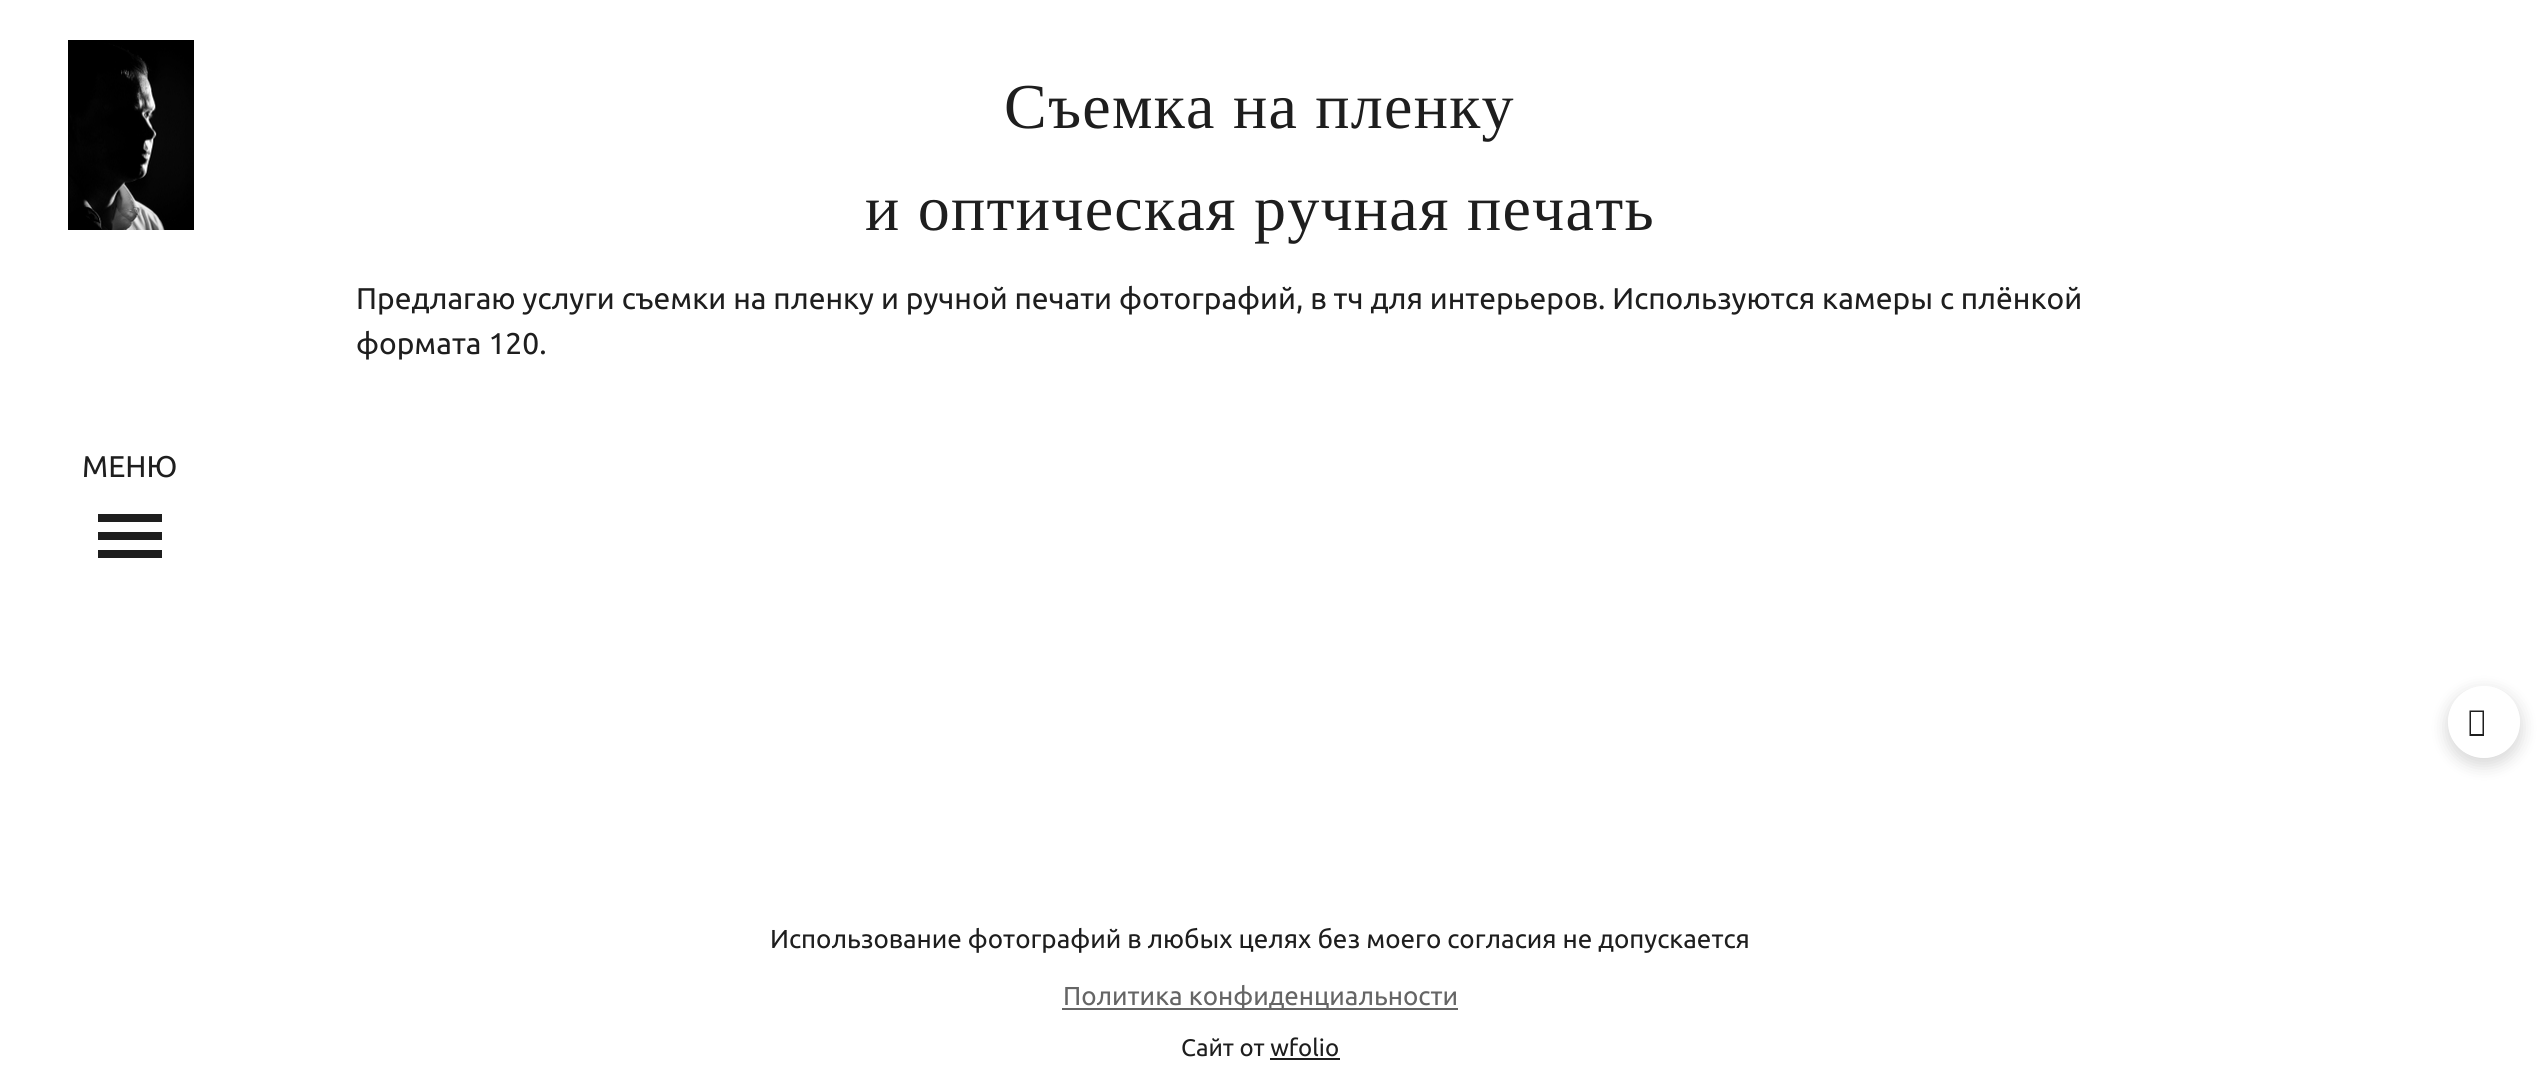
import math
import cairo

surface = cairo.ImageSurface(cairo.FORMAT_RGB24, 2540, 1069)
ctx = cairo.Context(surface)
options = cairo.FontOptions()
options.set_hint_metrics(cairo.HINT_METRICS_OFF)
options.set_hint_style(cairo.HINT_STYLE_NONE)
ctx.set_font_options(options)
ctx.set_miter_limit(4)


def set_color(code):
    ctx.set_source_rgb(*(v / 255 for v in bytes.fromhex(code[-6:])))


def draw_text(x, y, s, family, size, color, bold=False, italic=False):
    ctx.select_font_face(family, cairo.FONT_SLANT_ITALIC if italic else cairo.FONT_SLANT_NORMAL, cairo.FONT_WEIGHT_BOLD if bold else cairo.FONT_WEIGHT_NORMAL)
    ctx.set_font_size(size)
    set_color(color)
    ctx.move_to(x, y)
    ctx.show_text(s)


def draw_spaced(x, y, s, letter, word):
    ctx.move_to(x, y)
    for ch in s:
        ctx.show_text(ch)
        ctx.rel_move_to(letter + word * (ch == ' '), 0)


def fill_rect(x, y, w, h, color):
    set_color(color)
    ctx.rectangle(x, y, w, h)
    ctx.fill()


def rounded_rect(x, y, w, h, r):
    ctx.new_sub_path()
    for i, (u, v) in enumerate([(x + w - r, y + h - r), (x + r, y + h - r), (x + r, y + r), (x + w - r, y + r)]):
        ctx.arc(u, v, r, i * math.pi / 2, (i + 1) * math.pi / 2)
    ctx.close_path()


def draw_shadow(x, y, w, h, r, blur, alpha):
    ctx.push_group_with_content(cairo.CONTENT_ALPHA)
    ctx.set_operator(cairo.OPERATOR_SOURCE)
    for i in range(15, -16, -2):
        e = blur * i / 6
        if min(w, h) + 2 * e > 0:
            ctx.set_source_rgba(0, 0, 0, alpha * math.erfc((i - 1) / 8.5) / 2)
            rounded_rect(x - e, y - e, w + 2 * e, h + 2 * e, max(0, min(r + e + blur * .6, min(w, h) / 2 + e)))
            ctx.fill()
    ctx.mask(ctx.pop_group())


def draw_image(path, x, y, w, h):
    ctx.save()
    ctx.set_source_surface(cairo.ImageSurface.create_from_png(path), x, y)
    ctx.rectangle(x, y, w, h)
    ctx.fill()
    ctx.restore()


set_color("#ffffff")
ctx.paint()
draw_image("assets/img1.png", 68, 40, 126, 190)
draw_text(82, 477, "МЕНЮ", "Ubuntu", 30, "#1e1e1e")
fill_rect(98, 532, 64, 8, "#1e1e1e")
fill_rect(98, 514, 64, 8, "#1e1e1e")
fill_rect(98, 550, 64, 8, "#1e1e1e")
ctx.select_font_face("Liberation Serif")
ctx.set_font_size(64)
draw_spaced(1004, 128, "Съемка на пленку", 1.25, 0)
draw_spaced(865, 230, "и оптическая ручная печать", 1.25, 0)
draw_text(356, 309, "Предлагаю услуги съемки на пленку и ручной печати фотографий, в тч для интерьеров. Используются камеры с плёнкой", "Ubuntu", 30, "#1e1e1e")
draw_text(356, 354, "формата 120.", "Ubuntu", 30, "#1e1e1e")
draw_text(770, 948, "Использование фотографий в любых целях без моего согласия не допускается", "Ubuntu", 26, "#1e1e1e")
fill_rect(1062, 1008, 396, 2, "#656565")
draw_text(1063, 1005, "Политика конфиденциальности", "Ubuntu", 26, "#656565")
draw_text(1181, 1056, "Сайт от wfolio", "Ubuntu", 24, "#1e1e1e")
fill_rect(1270, 1058, 70, 2, "#1e1e1e")
ctx.save()
ctx.set_fill_rule(cairo.FILL_RULE_EVEN_ODD)
ctx.new_path()
ctx.move_to(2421, 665)
ctx.line_to(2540, 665)
ctx.line_to(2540, 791)
ctx.line_to(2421, 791)
ctx.close_path()
ctx.move_to(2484, 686)
ctx.curve_to(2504, 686, 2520, 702, 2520, 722)
ctx.curve_to(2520, 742, 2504, 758, 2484, 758)
ctx.curve_to(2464, 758, 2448, 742, 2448, 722)
ctx.curve_to(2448, 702, 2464, 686, 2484, 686)
ctx.close_path()
ctx.clip()
set_color("#000000")
draw_shadow(2446, 690, 76, 76, 38, 8, 0.15)
ctx.restore()
ctx.new_path()
ctx.move_to(2469.5, 736)
ctx.line_to(2469.5, 710.5)
ctx.line_to(2484, 710.5)
ctx.line_to(2484, 736)
ctx.close_path()
ctx.move_to(2471, 734)
ctx.line_to(2482.5, 734)
ctx.line_to(2482.5, 712)
ctx.line_to(2471, 712)
ctx.close_path()
ctx.fill()
surface.write_to_png("output.png")
